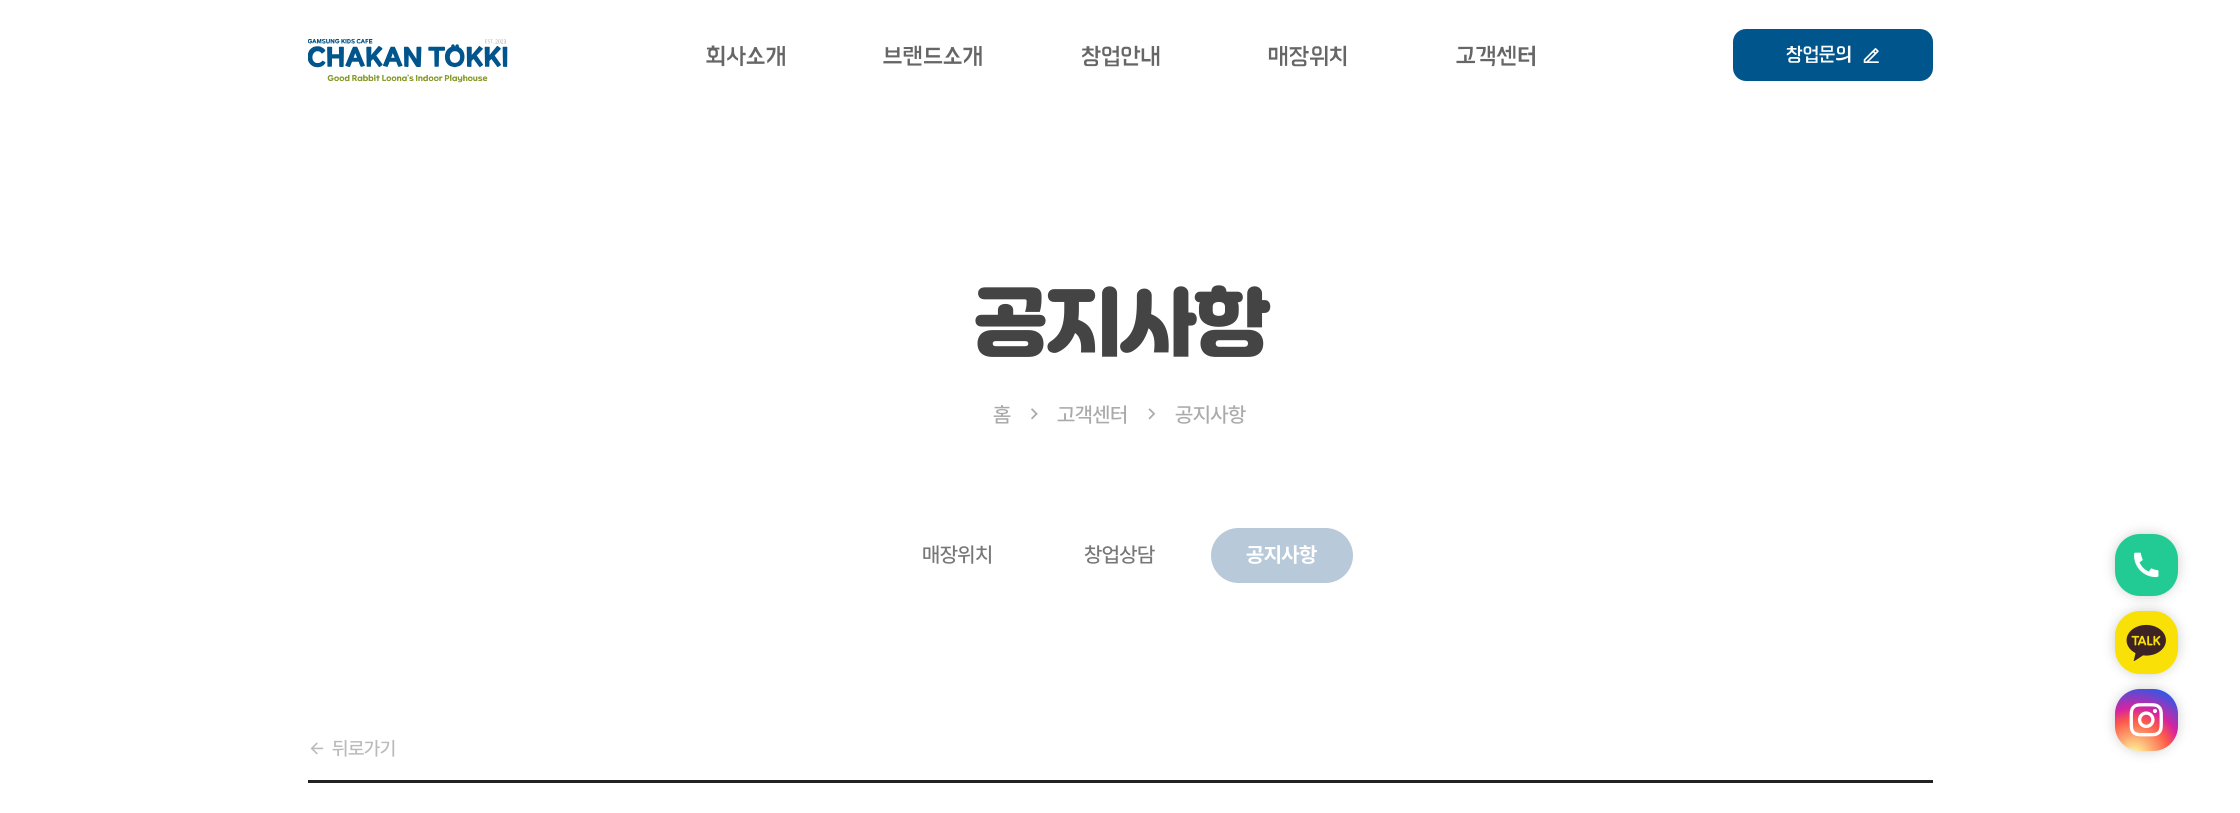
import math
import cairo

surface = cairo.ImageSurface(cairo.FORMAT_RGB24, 2240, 813)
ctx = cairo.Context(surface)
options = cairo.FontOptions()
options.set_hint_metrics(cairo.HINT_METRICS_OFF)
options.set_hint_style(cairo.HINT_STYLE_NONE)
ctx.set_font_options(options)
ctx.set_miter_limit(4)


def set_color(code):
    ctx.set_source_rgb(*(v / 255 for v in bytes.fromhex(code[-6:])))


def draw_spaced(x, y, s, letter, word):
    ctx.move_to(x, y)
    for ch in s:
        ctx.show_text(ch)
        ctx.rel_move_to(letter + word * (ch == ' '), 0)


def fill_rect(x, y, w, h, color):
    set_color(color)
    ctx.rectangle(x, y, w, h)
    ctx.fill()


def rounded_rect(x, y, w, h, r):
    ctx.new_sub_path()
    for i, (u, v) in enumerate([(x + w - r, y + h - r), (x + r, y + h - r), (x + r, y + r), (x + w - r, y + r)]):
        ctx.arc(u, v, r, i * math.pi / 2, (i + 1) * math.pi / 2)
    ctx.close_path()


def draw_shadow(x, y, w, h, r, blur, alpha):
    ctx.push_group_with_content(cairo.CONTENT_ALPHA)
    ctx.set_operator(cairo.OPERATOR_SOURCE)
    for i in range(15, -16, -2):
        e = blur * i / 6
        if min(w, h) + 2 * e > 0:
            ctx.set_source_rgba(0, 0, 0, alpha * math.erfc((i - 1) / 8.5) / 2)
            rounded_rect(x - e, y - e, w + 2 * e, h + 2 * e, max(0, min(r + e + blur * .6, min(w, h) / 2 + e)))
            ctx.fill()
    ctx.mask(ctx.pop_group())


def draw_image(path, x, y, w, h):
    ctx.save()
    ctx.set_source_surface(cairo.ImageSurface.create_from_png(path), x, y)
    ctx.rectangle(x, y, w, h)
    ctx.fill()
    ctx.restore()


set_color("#ffffff")
ctx.paint()
draw_image("assets/img1.png", 308, 39, 200, 44)
ctx.select_font_face("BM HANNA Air", cairo.FONT_SLANT_NORMAL, cairo.FONT_WEIGHT_BOLD)
ctx.set_font_size(25)
set_color("#666666")
draw_spaced(705, 64, "회사소개", -0.5, 0)
draw_spaced(882, 64, "브랜드소개", -0.5, 0)
draw_spaced(1080, 64, "창업안내", -0.5, 0)
draw_spaced(1267, 64, "매장위치", -0.5, 0)
draw_spaced(1455, 64, "고객센터", -0.5, 0)
set_color("#00558c")
rounded_rect(1733, 29, 200, 52, 13)
ctx.fill()
ctx.set_font_size(21)
set_color("#ffffff")
draw_spaced(1785, 61, "창업문의", -0.5, 0)
draw_image("assets/img2.png", 1863, 48, 16, 15)
ctx.select_font_face("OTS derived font", cairo.FONT_SLANT_NORMAL, cairo.FONT_WEIGHT_BOLD)
ctx.set_font_size(75)
set_color("#444444")
draw_spaced(973, 351, "공지사항", -1.5, 0)
ctx.select_font_face("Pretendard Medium")
ctx.set_font_size(21)
set_color("#aaaaaa")
draw_spaced(993, 422, "홈", -0.5, 0)
draw_image("assets/img3.png", 1031, 408, 7, 12)
draw_spaced(1057, 422, "고객센터", -0.5, 0)
draw_image("assets/img4.png", 1148, 408, 8, 12)
draw_spaced(1175, 422, "공지사항", -0.5, 0)
set_color("#777777")
draw_spaced(922, 562, "매장위치", -0.5, 0)
draw_spaced(1084, 562, "창업상담", -0.5, 0)
set_color("#b8c9d9")
rounded_rect(1211, 528, 142, 55, 27.5)
ctx.fill()
ctx.select_font_face("Pretendard", cairo.FONT_SLANT_NORMAL, cairo.FONT_WEIGHT_BOLD)
set_color("#ffffff")
draw_spaced(1246, 562, "공지사항", -0.5, 0)
draw_image("assets/img5.png", 310, 742, 14, 13)
ctx.select_font_face("Pretendard Medium")
ctx.set_font_size(19)
set_color("#bababa")
draw_spaced(332, 755, "뒤로가기", -0.5, 0)
fill_rect(308, 780, 1625, 3, "#222222")
set_color("#000000")
draw_shadow(2115, 611, 63, 63, 25, 6, 0.2)
set_color("#f9e108")
rounded_rect(2115, 611, 63, 63, 25)
ctx.fill()
set_color("#000000")
draw_shadow(2115, 534, 63, 62, 25, 6, 0.2)
set_color("#23cb94")
rounded_rect(2115, 534, 63, 62, 25)
ctx.fill()
draw_image("assets/img6.png", 2134, 552, 25, 26)
draw_image("assets/img7.png", 2126, 624, 40, 37)
set_color("#000000")
draw_shadow(2115, 689, 63, 62, 25, 6, 0.2)
gradient = cairo.RadialGradient(2134, 756, 0, 2134, 756, 80)
gradient.add_color_stop_rgba(0, 0.992, 0.957, 0.592, 1)
gradient.add_color_stop_rgba(0.05, 0.992, 0.957, 0.592, 1)
gradient.add_color_stop_rgba(0.45, 0.992, 0.349, 0.286, 1)
gradient.add_color_stop_rgba(0.6, 0.839, 0.141, 0.624, 1)
gradient.add_color_stop_rgba(0.9, 0.157, 0.353, 0.922, 1)
ctx.set_source(gradient)
rounded_rect(2115, 689, 63, 62, 25)
ctx.fill()
draw_image("assets/img8.png", 2129, 703, 34, 34)
surface.write_to_png("output.png")
